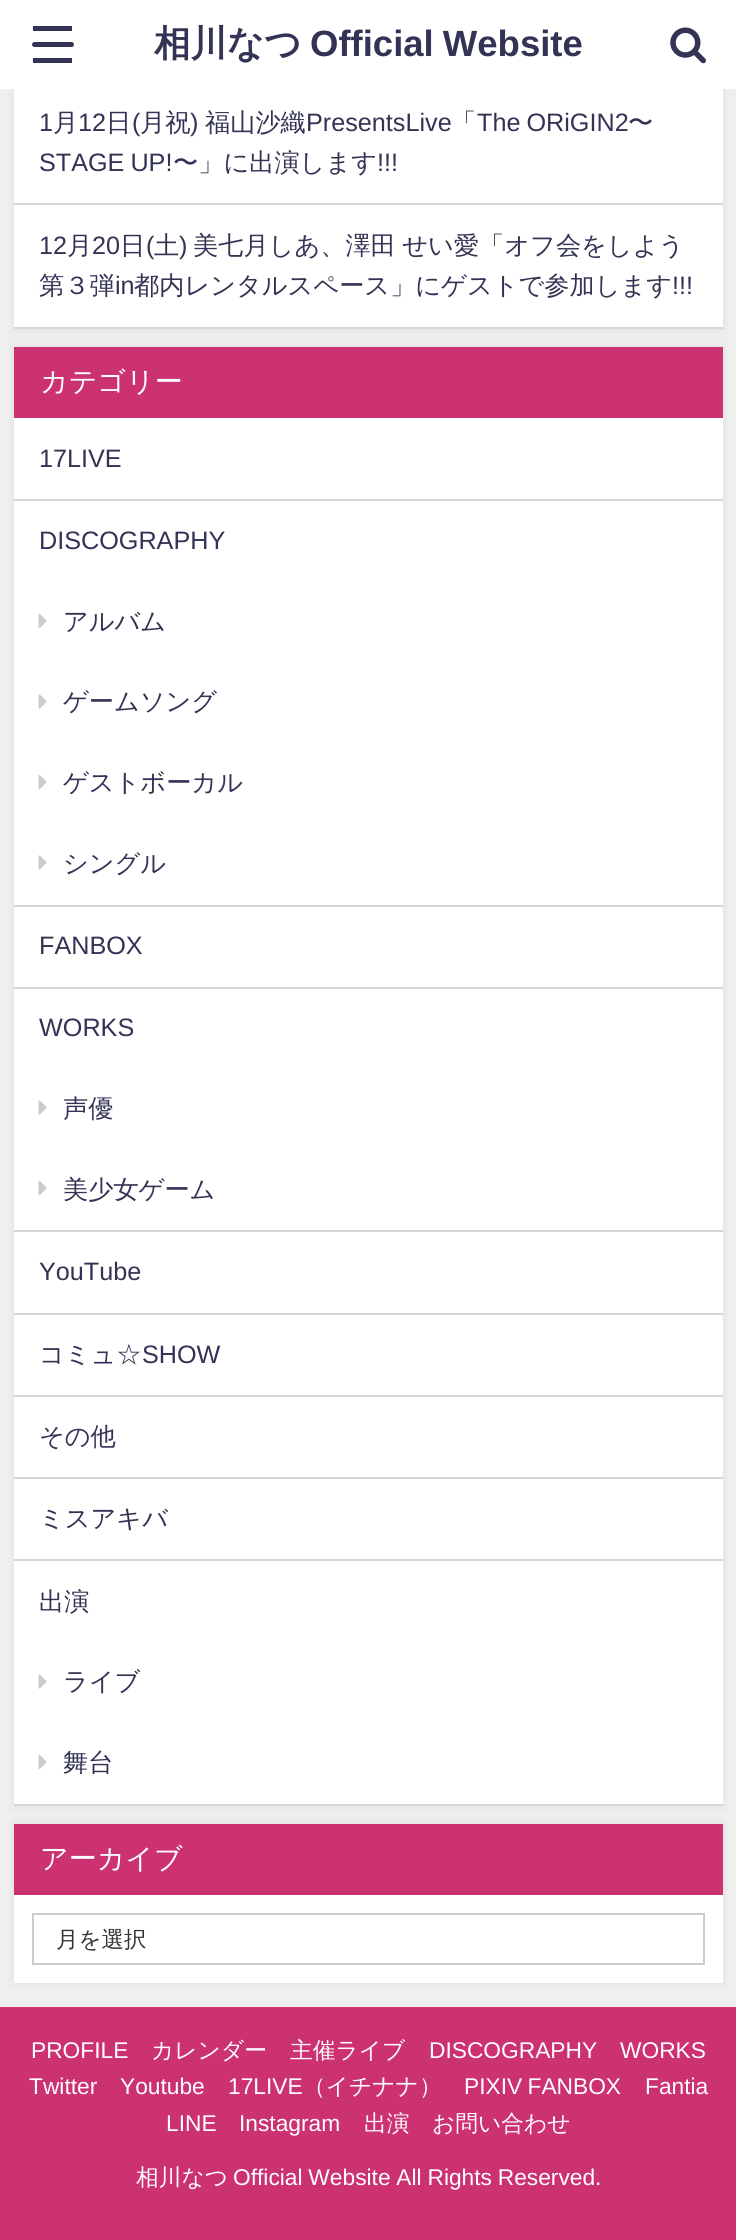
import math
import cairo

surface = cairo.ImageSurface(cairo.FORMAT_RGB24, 736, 2240)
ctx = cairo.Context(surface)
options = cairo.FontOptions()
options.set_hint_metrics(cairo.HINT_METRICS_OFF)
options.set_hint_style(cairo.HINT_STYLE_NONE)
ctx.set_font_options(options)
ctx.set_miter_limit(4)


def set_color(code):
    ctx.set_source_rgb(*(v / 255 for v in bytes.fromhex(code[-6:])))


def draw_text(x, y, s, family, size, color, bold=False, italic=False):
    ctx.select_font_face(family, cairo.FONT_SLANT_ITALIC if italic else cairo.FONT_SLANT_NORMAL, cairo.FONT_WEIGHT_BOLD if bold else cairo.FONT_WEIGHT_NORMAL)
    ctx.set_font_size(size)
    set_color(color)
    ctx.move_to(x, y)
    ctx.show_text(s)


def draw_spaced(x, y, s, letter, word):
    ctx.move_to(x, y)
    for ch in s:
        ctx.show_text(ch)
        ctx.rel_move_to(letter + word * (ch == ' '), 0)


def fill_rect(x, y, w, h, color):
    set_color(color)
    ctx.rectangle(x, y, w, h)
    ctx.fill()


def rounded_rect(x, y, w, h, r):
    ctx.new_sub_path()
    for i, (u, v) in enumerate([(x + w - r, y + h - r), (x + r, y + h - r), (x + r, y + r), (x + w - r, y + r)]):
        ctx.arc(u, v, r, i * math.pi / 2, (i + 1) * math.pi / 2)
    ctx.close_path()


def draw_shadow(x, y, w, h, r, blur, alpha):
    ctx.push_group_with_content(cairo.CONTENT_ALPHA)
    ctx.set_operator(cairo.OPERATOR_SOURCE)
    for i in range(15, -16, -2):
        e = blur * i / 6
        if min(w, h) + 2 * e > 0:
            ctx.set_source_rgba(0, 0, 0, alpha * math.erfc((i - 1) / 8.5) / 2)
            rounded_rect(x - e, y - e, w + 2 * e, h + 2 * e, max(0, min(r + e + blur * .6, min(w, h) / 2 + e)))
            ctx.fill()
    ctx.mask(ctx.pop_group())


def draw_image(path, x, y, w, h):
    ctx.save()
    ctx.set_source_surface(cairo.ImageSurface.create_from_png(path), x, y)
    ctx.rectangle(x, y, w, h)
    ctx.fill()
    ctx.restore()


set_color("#efefef")
ctx.paint()
set_color("#969696")
draw_shadow(14, -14, 709, 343, 0, 4.5, 0.2)
fill_rect(0, 0, 736, 89, "#ffffff")
fill_rect(33, 26, 39, 5, "#333355")
rounded_rect(32, 42, 42, 5, 2.5)
ctx.fill()
fill_rect(33, 58, 39, 5, "#333355")
draw_text(154, 56, "相川なつ", "WenQuanYi Zen Hei", 36.5, "#333355", bold=True)
ctx.select_font_face("Liberation Sans", cairo.FONT_SLANT_NORMAL, cairo.FONT_WEIGHT_BOLD)
draw_spaced(310, 56, "Official Website", 0, -1)
draw_image("assets/img1.png", 670, 27, 36, 37)
fill_rect(14, 89, 709, 238, "#ffffff")
fill_rect(14, 203, 709, 2, "#d6d6d6")
draw_text(39, 131, "1", "Liberation Sans", 25.2, "#333355")
draw_text(53, 131, "月", "WenQuanYi Zen Hei Medium", 25.2, "#333355")
draw_text(78, 131, "12", "Liberation Sans", 25.2, "#333355")
draw_text(106, 131, "日", "WenQuanYi Zen Hei Medium", 25.2, "#333355")
draw_text(132, 131, "(", "Liberation Sans", 25.2, "#333355")
draw_text(140, 131, "月祝", "WenQuanYi Zen Hei Medium", 25.2, "#333355")
draw_text(190, 131, ")", "Liberation Sans", 25.2, "#333355")
draw_text(205, 131, "福山沙織", "WenQuanYi Zen Hei Medium", 25.2, "#333355")
draw_text(306, 131, "PresentsLive", "Liberation Sans", 25.2, "#333355")
draw_text(451, 131, "「", "WenQuanYi Zen Hei Medium", 25.2, "#333355")
ctx.select_font_face("Liberation Sans")
draw_spaced(477, 131, "The ORiGIN2", 0, -1)
draw_text(628, 131, "〜", "WenQuanYi Zen Hei Medium", 25.2, "#333355")
ctx.select_font_face("Liberation Sans")
draw_spaced(39, 171, "STAGE UP!", 0, -1)
draw_text(173, 171, "〜」に出演します", "WenQuanYi Zen Hei Medium", 25.2, "#333355")
draw_text(377, 171, "!!!", "Liberation Sans", 25.2, "#333355")
fill_rect(14, 327, 709, 2, "#d6d6d6")
draw_text(39, 254, "12", "Liberation Sans", 25.2, "#333355")
draw_text(67, 254, "月", "WenQuanYi Zen Hei Medium", 25.2, "#333355")
draw_text(92, 254, "20", "Liberation Sans", 25.2, "#333355")
draw_text(120, 254, "日", "WenQuanYi Zen Hei Medium", 25.2, "#333355")
draw_text(146, 254, "(", "Liberation Sans", 25.2, "#333355")
draw_text(154, 254, "土", "WenQuanYi Zen Hei Medium", 25.2, "#333355")
draw_text(179, 254, ")", "Liberation Sans", 25.2, "#333355")
ctx.select_font_face("WenQuanYi Zen Hei Medium")
draw_spaced(193, 254, "美七月しあ、澤田 せい愛「オフ会をしよう", 0, -1)
draw_text(39, 294, "第３弾", "WenQuanYi Zen Hei Medium", 25.2, "#333355")
draw_text(115, 294, "in", "Liberation Sans", 25.2, "#333355")
draw_text(134, 294, "都内レンタルスペース」にゲストで参加します", "WenQuanYi Zen Hei Medium", 25.2, "#333355")
draw_text(672, 294, "!!!", "Liberation Sans", 25.2, "#333355")
set_color("#969696")
draw_shadow(14, 347, 709, 1459, 0, 4.5, 0.2)
fill_rect(14, 418, 709, 1386, "#ffffff")
fill_rect(14, 347, 709, 71, "#cc3171")
draw_text(40, 391, "カテゴリー", "WenQuanYi Zen Hei Medium", 28, "#ffffff")
fill_rect(14, 499, 709, 2, "#d6d6d6")
draw_text(39, 467, "17LIVE", "Liberation Sans", 25.2, "#333355")
fill_rect(14, 905, 709, 2, "#d6d6d6")
draw_text(39, 549, "DISCOGRAPHY", "Liberation Sans", 25.2, "#333355")
draw_image("assets/img2.png", 38, 613, 9, 16)
draw_text(63, 630, "アルバム", "WenQuanYi Zen Hei Medium", 25.2, "#333355")
draw_image("assets/img3.png", 38, 694, 9, 15)
draw_text(63, 710, "ゲームソング", "WenQuanYi Zen Hei Medium", 25.2, "#333355")
draw_image("assets/img2.png", 38, 774, 9, 16)
draw_text(63, 791, "ゲストボーカル", "WenQuanYi Zen Hei Medium", 25.2, "#333355")
draw_image("assets/img3.png", 38, 855, 9, 15)
draw_text(63, 872, "シングル", "WenQuanYi Zen Hei Medium", 25.2, "#333355")
fill_rect(14, 987, 709, 2, "#d6d6d6")
draw_text(39, 954, "FANBOX", "Liberation Sans", 25.2, "#333355")
fill_rect(14, 1230, 709, 2, "#d6d6d6")
draw_text(39, 1036, "WORKS", "Liberation Sans", 25.2, "#333355")
draw_image("assets/img3.png", 38, 1100, 9, 15)
draw_text(63, 1117, "声優", "WenQuanYi Zen Hei Medium", 25.2, "#333355")
draw_image("assets/img2.png", 38, 1180, 9, 16)
draw_text(63, 1198, "美少女ゲーム", "WenQuanYi Zen Hei Medium", 25.2, "#333355")
fill_rect(14, 1313, 709, 2, "#d6d6d6")
draw_text(39, 1280, "YouTube", "Liberation Sans", 25.2, "#333355")
fill_rect(14, 1395, 709, 2, "#d6d6d6")
draw_text(39, 1363, "コミュ☆", "WenQuanYi Zen Hei Medium", 25.2, "#333355")
draw_text(142, 1363, "SHOW", "Liberation Sans", 25.2, "#333355")
fill_rect(14, 1477, 709, 2, "#d6d6d6")
draw_text(39, 1445, "その他", "WenQuanYi Zen Hei Medium", 25.2, "#333355")
fill_rect(14, 1559, 709, 2, "#d6d6d6")
draw_text(39, 1527, "ミスアキバ", "WenQuanYi Zen Hei Medium", 25.2, "#333355")
fill_rect(14, 1804, 709, 2, "#d6d6d6")
draw_text(39, 1610, "出演", "WenQuanYi Zen Hei Medium", 25.2, "#333355")
draw_image("assets/img3.png", 38, 1674, 9, 15)
draw_text(63, 1690, "ライブ", "WenQuanYi Zen Hei Medium", 25.2, "#333355")
draw_image("assets/img2.png", 38, 1754, 9, 16)
draw_text(63, 1771, "舞台", "WenQuanYi Zen Hei Medium", 25.2, "#333355")
set_color("#969696")
draw_shadow(14, 1824, 709, 159, 0, 4.5, 0.2)
fill_rect(14, 1895, 709, 88, "#ffffff")
fill_rect(14, 1824, 709, 71, "#cc3171")
draw_text(40, 1868, "アーカイブ", "WenQuanYi Zen Hei Medium", 28, "#ffffff")
ctx.rectangle(33, 1914, 671, 50)
set_color("#cccccc")
ctx.stroke()
draw_text(56, 1947, "月を選択", "WenQuanYi Zen Hei Medium", 22.5, "#333333")
fill_rect(0, 2007, 736, 233, "#cc3171")
draw_text(31, 2058, "PROFILE", "Liberation Sans", 22.75, "#ffffff")
draw_text(151, 2058, "カレンダー", "WenQuanYi Zen Hei Medium", 22.75, "#ffffff")
draw_text(290, 2058, "主催ライブ", "WenQuanYi Zen Hei Medium", 22.75, "#ffffff")
draw_text(429, 2058, "DISCOGRAPHY", "Liberation Sans", 22.75, "#ffffff")
draw_text(620, 2058, "WORKS", "Liberation Sans", 22.75, "#ffffff")
draw_text(29, 2094, "Twitter", "Liberation Sans", 22.75, "#ffffff")
draw_text(120, 2094, "Youtube", "Liberation Sans", 22.75, "#ffffff")
draw_text(228, 2094, "17LIVE", "Liberation Sans", 22.75, "#ffffff")
draw_text(303, 2094, "（イチナナ）", "WenQuanYi Zen Hei Medium", 22.75, "#ffffff")
ctx.select_font_face("Liberation Sans")
draw_spaced(464, 2094, "PIXIV FANBOX", 0, -1)
draw_text(645, 2094, "Fantia", "Liberation Sans", 22.75, "#ffffff")
draw_text(166, 2131, "LINE", "Liberation Sans", 22.75, "#ffffff")
draw_text(239, 2131, "Instagram", "Liberation Sans", 22.75, "#ffffff")
draw_text(364, 2131, "出演", "WenQuanYi Zen Hei Medium", 22.75, "#ffffff")
draw_text(432, 2131, "お問い合わせ", "WenQuanYi Zen Hei Medium", 22.75, "#ffffff")
draw_text(136, 2185, "相川なつ", "WenQuanYi Zen Hei Medium", 22.75, "#ffffff")
ctx.select_font_face("Liberation Sans")
draw_spaced(233, 2185, "Official Website All Rights Reserved.", 0, -0.5)
surface.write_to_png("output.png")
